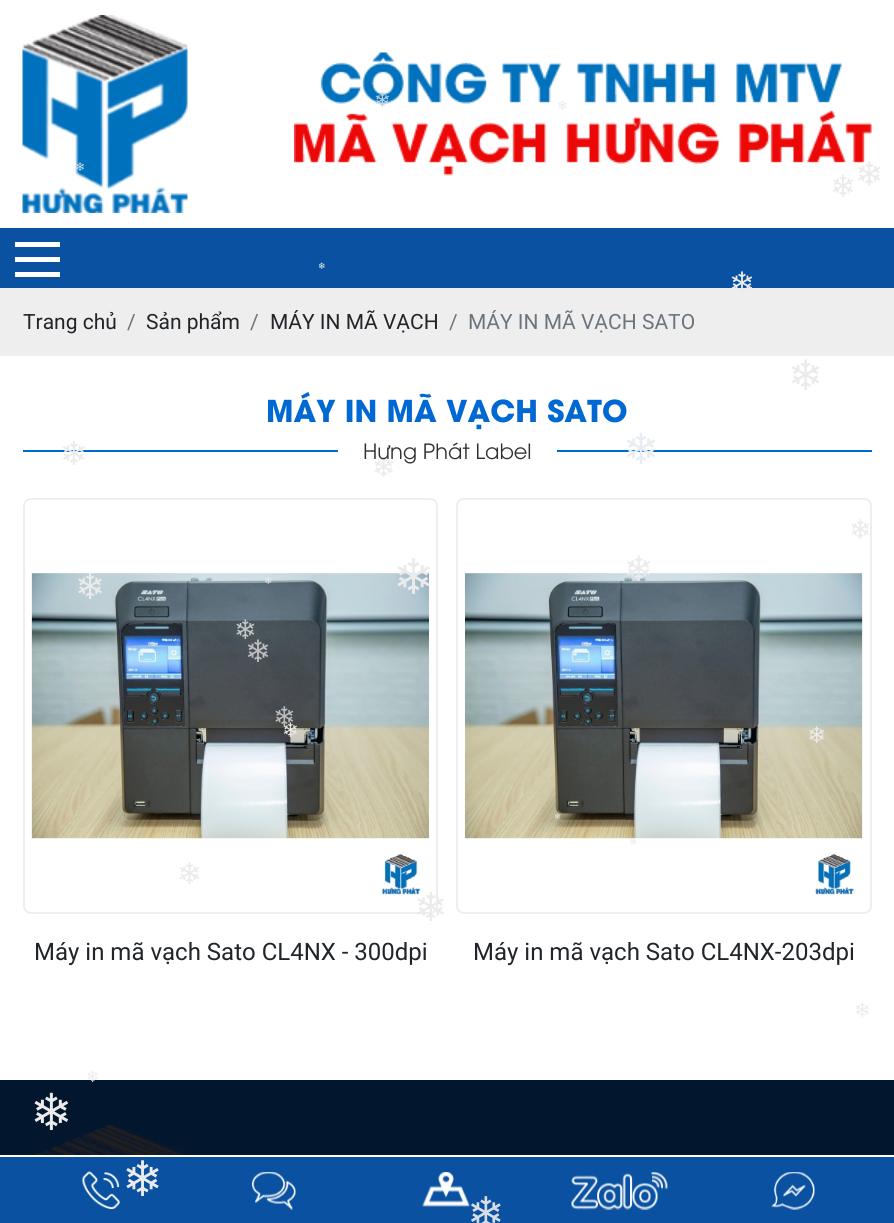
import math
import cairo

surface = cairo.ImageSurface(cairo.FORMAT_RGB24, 894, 1223)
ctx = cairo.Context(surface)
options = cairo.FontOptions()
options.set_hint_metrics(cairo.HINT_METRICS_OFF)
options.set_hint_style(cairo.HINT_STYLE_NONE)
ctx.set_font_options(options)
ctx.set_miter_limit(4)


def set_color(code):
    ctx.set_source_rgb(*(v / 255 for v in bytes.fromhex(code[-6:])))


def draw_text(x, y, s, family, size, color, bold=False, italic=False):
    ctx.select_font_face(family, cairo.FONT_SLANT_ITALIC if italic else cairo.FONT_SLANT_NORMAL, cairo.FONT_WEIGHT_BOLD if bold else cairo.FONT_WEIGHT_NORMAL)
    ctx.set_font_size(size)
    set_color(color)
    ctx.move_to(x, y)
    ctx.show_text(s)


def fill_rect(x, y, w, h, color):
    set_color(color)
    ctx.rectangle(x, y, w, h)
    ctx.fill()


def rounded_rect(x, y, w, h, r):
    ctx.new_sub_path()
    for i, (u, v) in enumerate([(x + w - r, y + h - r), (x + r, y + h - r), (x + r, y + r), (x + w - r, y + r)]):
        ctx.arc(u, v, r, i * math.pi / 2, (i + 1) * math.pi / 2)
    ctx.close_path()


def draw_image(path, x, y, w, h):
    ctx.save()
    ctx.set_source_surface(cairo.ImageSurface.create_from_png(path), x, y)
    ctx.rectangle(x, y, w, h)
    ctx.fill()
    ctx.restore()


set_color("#ffffff")
ctx.paint()
draw_image("assets/img1.png", 22, 15, 166, 198)
draw_image("assets/img2.png", 294, 52, 578, 124)
draw_text(374, 107, "❄", "DejaVu Sans", 20, "#bbd3e3")
draw_text(557, 110, "❄", "DejaVu Sans", 13, "#ebebeb")
draw_text(75, 171, "❄", "DejaVu Sans", 12, "#dce3e8")
draw_text(855, 186, "❄", "DejaVu Sans", 34, "#ebebeb")
draw_text(830, 197, "❄", "DejaVu Sans", 31, "#ebebeb")
fill_rect(0, 228, 894, 60, "#0a51a1")
draw_text(318, 269, "❄", "DejaVu Sans", 9, "#ebebeb")
fill_rect(0, 288, 894, 68, "#eeeeee")
draw_text(729, 294, "❄", "DejaVu Sans", 31, "#ebebeb")
draw_text(788, 390, "❄", "DejaVu Sans", 42, "#ebebeb")
fill_rect(23, 450, 849, 2, "#0068d3")
draw_text(60, 465, "❄", "DejaVu Sans", 33, "#ebebeb")
draw_text(372, 477, "❄", "DejaVu Sans", 28, "#ebebeb")
draw_text(623, 464, "❄", "DejaVu Sans", 43, "#e8edf2")
rounded_rect(457, 499, 414, 414, 7)
set_color("#eeeeee")
ctx.stroke()
draw_text(849, 539, "❄", "DejaVu Sans", 27, "#ebebeb")
rounded_rect(24, 499, 413, 414, 7)
set_color("#eeeeee")
ctx.stroke()
draw_image("assets/img3.png", 31, 573, 398, 322)
draw_text(75, 599, "❄", "DejaVu Sans", 36, "#ebebeb")
draw_text(264, 584, "❄", "DejaVu Sans", 10, "#ebebeb")
draw_text(393, 594, "❄", "DejaVu Sans", 49, "#ebebeb")
draw_image("assets/img4.png", 465, 573, 398, 322)
draw_text(624, 581, "❄", "DejaVu Sans", 35, "#ebebeb")
draw_text(234, 639, "❄", "DejaVu Sans", 27, "#c3c6c8")
draw_text(245, 662, "❄", "DejaVu Sans", 31, "#bcbdbd")
draw_text(273, 726, "❄", "DejaVu Sans", 27, "#bcbdbd")
draw_text(282, 737, "❄", "DejaVu Sans", 20, "#ebebeb")
draw_text(807, 743, "❄", "DejaVu Sans", 23, "#ebebeb")
draw_text(554, 819, "❄", "DejaVu Sans", 8, "#ebebeb")
draw_text(629, 845, "❄", "DejaVu Sans", 10, "#ebebeb")
draw_text(177, 884, "❄", "DejaVu Sans", 30, "#ebebeb")
draw_text(414, 921, "❄", "DejaVu Sans", 40, "#ebebeb")
draw_text(854, 1017, "❄", "DejaVu Sans", 20, "#ebebeb")
fill_rect(0, 1080, 894, 75, "#02162e")
draw_text(86, 1082, "❄", "DejaVu Sans", 16, "#ebebeb")
draw_image("assets/img5.png", 33, 1125, 162, 30)
draw_text(30, 1130, "❄", "DejaVu Sans", 51, "#ebebeb")
fill_rect(0, 1157, 894, 66, "#0a51a1")
draw_text(122, 1196, "❄", "DejaVu Sans", 49, "#ebebeb")
draw_text(467, 1229, "❄", "DejaVu Sans", 45, "#d6dde4")
fill_rect(15, 242, 45, 5, "#ffffff")
fill_rect(15, 257, 45, 5, "#ffffff")
fill_rect(15, 272, 45, 5, "#ffffff")
draw_text(23, 329, "Trang chủ", "Roboto", 21, "#212529")
draw_text(127, 329, "/", "Roboto", 21, "#6c757d")
draw_text(146, 329, "Sản phẩm", "Roboto", 21, "#212529")
draw_text(250, 329, "/", "Roboto", 21, "#6c757d")
draw_text(270, 329, "MÁY IN MÃ VẠCH", "Roboto", 21, "#212529")
draw_text(449, 329, "/", "Roboto", 21, "#6c757d")
draw_text(468, 329, "MÁY IN MÃ VẠCH SATO", "Roboto", 21, "#6c757d")
draw_text(266, 422, "MÁY IN MÃ VẠCH SATO", "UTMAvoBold", 30, "#0068d2", bold=True)
fill_rect(338, 450, 219, 2, "#ffffff")
draw_text(363, 459, "Hưng Phát Label", "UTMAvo", 21, "#313131")
draw_text(34, 960, "Máy in mã vạch Sato CL4NX - 300dpi", "Roboto", 24, "#212529")
draw_text(473, 960, "Máy in mã vạch Sato CL4NX-203dpi", "Roboto", 24, "#212529")
draw_image("assets/img6.png", 82, 1171, 38, 38)
draw_image("assets/img7.png", 252, 1172, 44, 38)
draw_image("assets/img8.png", 422, 1172, 48, 35)
draw_image("assets/img9.png", 571, 1172, 97, 38)
draw_image("assets/img10.png", 771, 1172, 44, 38)
surface.write_to_png("output.png")
